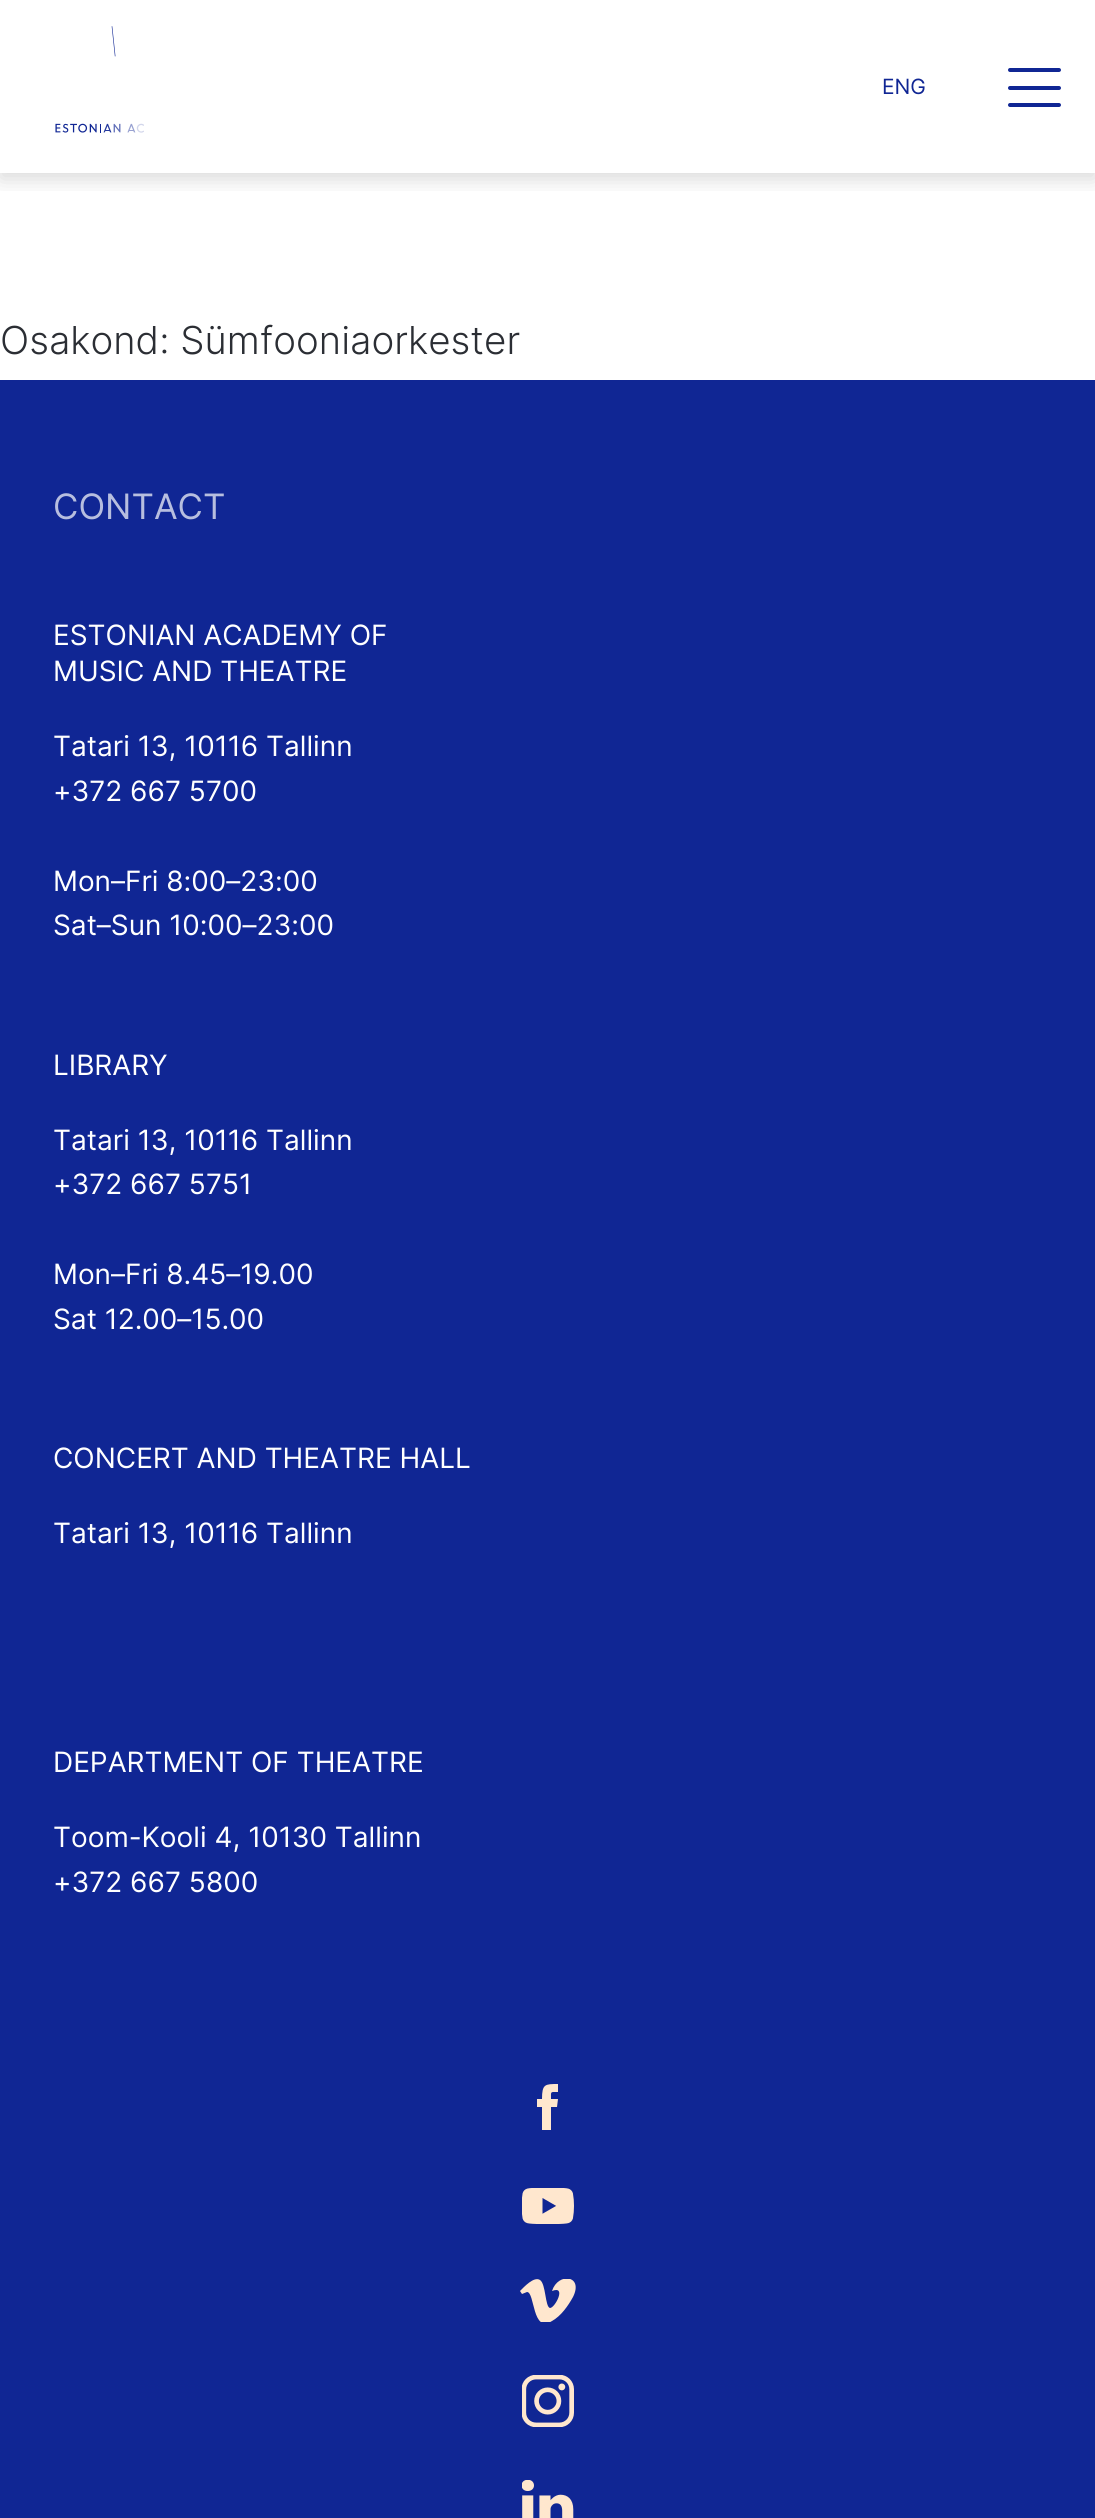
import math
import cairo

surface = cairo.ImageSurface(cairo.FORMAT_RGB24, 1095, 2518)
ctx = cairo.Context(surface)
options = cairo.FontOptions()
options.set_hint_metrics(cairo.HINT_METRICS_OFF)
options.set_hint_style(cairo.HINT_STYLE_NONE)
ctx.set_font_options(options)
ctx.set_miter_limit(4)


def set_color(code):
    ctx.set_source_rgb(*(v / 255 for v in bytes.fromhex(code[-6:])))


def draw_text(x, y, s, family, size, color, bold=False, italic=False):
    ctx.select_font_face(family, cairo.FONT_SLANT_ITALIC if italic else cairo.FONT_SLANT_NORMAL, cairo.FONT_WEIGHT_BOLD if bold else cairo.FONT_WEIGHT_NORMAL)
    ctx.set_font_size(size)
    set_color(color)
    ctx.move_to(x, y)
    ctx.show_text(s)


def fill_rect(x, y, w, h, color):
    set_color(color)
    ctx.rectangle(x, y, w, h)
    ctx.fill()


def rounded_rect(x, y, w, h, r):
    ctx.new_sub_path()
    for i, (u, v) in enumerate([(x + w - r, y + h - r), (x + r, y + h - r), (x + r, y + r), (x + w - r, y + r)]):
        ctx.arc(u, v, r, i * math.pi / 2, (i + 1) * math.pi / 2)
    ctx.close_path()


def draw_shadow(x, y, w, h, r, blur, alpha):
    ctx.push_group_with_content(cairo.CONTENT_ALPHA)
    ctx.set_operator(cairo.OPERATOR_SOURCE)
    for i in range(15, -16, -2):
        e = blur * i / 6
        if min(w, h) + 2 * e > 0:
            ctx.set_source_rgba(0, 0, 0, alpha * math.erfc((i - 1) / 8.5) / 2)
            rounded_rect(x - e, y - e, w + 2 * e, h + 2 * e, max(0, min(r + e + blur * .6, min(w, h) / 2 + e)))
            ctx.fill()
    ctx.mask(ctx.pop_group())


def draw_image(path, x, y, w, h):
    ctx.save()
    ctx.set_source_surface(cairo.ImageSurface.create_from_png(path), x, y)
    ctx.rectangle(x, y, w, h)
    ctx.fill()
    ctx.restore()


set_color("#ffffff")
ctx.paint()
ctx.save()
ctx.rectangle(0, 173, 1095, 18)
ctx.clip()
set_color("#000000")
draw_shadow(0, 5, 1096, 174, 0, 10.5, 0.15)
ctx.restore()
draw_image("assets/img1.png", 55, 26, 89, 107)
draw_text(882, 94, "ENG", "Inter", 21, "#102694")
rounded_rect(1008, 68, 53, 4, 2)
ctx.fill()
rounded_rect(1008, 86, 53, 4, 2)
ctx.fill()
rounded_rect(1008, 103, 53, 4, 2)
ctx.fill()
draw_text(0, 354, "Osakond: Sümfooniaorkester", "Inter Light", 38.5, "#2b2e34")
fill_rect(0, 380, 1095, 2138, "#102694")
draw_text(53, 519, "CONTACT", "Inter", 35, "#b7bedf")
draw_text(53, 645, "ESTONIAN ACADEMY OF", "Inter", 28, "#ffffff")
draw_text(53, 681, "MUSIC AND THEATRE", "Inter", 28, "#ffffff")
draw_text(53, 756, "Tatari 13, 10116 Tallinn", "Inter", 28, "#ffffff")
draw_text(53, 801, "+372 667 5700", "Inter", 28, "#ffffff")
draw_text(53, 891, "Mon–Fri 8:00–23:00", "Inter", 28, "#ffffff")
draw_text(53, 935, "Sat–Sun 10:00–23:00", "Inter", 28, "#ffffff")
draw_text(53, 1075, "LIBRARY", "Inter", 28, "#ffffff")
draw_text(53, 1150, "Tatari 13, 10116 Tallinn", "Inter", 28, "#ffffff")
draw_text(53, 1194, "+372 667 5751", "Inter", 28, "#ffffff")
draw_text(53, 1284, "Mon–Fri 8.45–19.00", "Inter", 28, "#ffffff")
draw_text(53, 1329, "Sat 12.00–15.00", "Inter", 28, "#ffffff")
draw_text(53, 1468, "CONCERT AND THEATRE HALL", "Inter", 28, "#ffffff")
draw_text(53, 1543, "Tatari 13, 10116 Tallinn", "Inter", 28, "#ffffff")
draw_text(53, 1772, "DEPARTMENT OF THEATRE", "Inter", 28, "#ffffff")
draw_text(53, 1847, "Toom-Kooli 4, 10130 Tallinn", "Inter", 28, "#ffffff")
draw_text(53, 1892, "+372 667 5800", "Inter", 28, "#ffffff")
set_color("#ffe7ce")
ctx.new_path()
ctx.move_to(557, 2107)
ctx.line_to(551, 2107)
ctx.line_to(551, 2130)
ctx.line_to(542, 2130)
ctx.line_to(542, 2107)
ctx.line_to(537, 2107)
ctx.line_to(537, 2099)
ctx.line_to(542, 2099)
ctx.curve_to(542, 2084, 545, 2084, 558, 2084)
ctx.line_to(558, 2092)
ctx.curve_to(550, 2092, 551, 2091, 551, 2099)
ctx.line_to(558, 2099)
ctx.close_path()
ctx.fill()
draw_image("assets/img2.png", 522, 2188, 52, 36)
ctx.save()
ctx.rectangle(520, 2279, 56, 43)
ctx.clip()
ctx.new_path()
ctx.move_to(573, 2297)
ctx.curve_to(568, 2306, 561, 2316, 552, 2321)
ctx.curve_to(532, 2334, 535, 2292, 527, 2292)
ctx.line_to(522, 2294)
ctx.line_to(520, 2291)
ctx.curve_to(524, 2287, 534, 2276, 540, 2280)
ctx.curve_to(546, 2284, 545, 2307, 550, 2308)
ctx.curve_to(555, 2308, 567, 2285, 552, 2291)
ctx.curve_to(558, 2272, 584, 2275, 573, 2297)
ctx.close_path()
ctx.fill()
ctx.restore()
draw_image("assets/img3.png", 522, 2375, 52, 52)
draw_image("assets/img4.png", 522, 2480, 52, 38)
surface.write_to_png("output.png")
